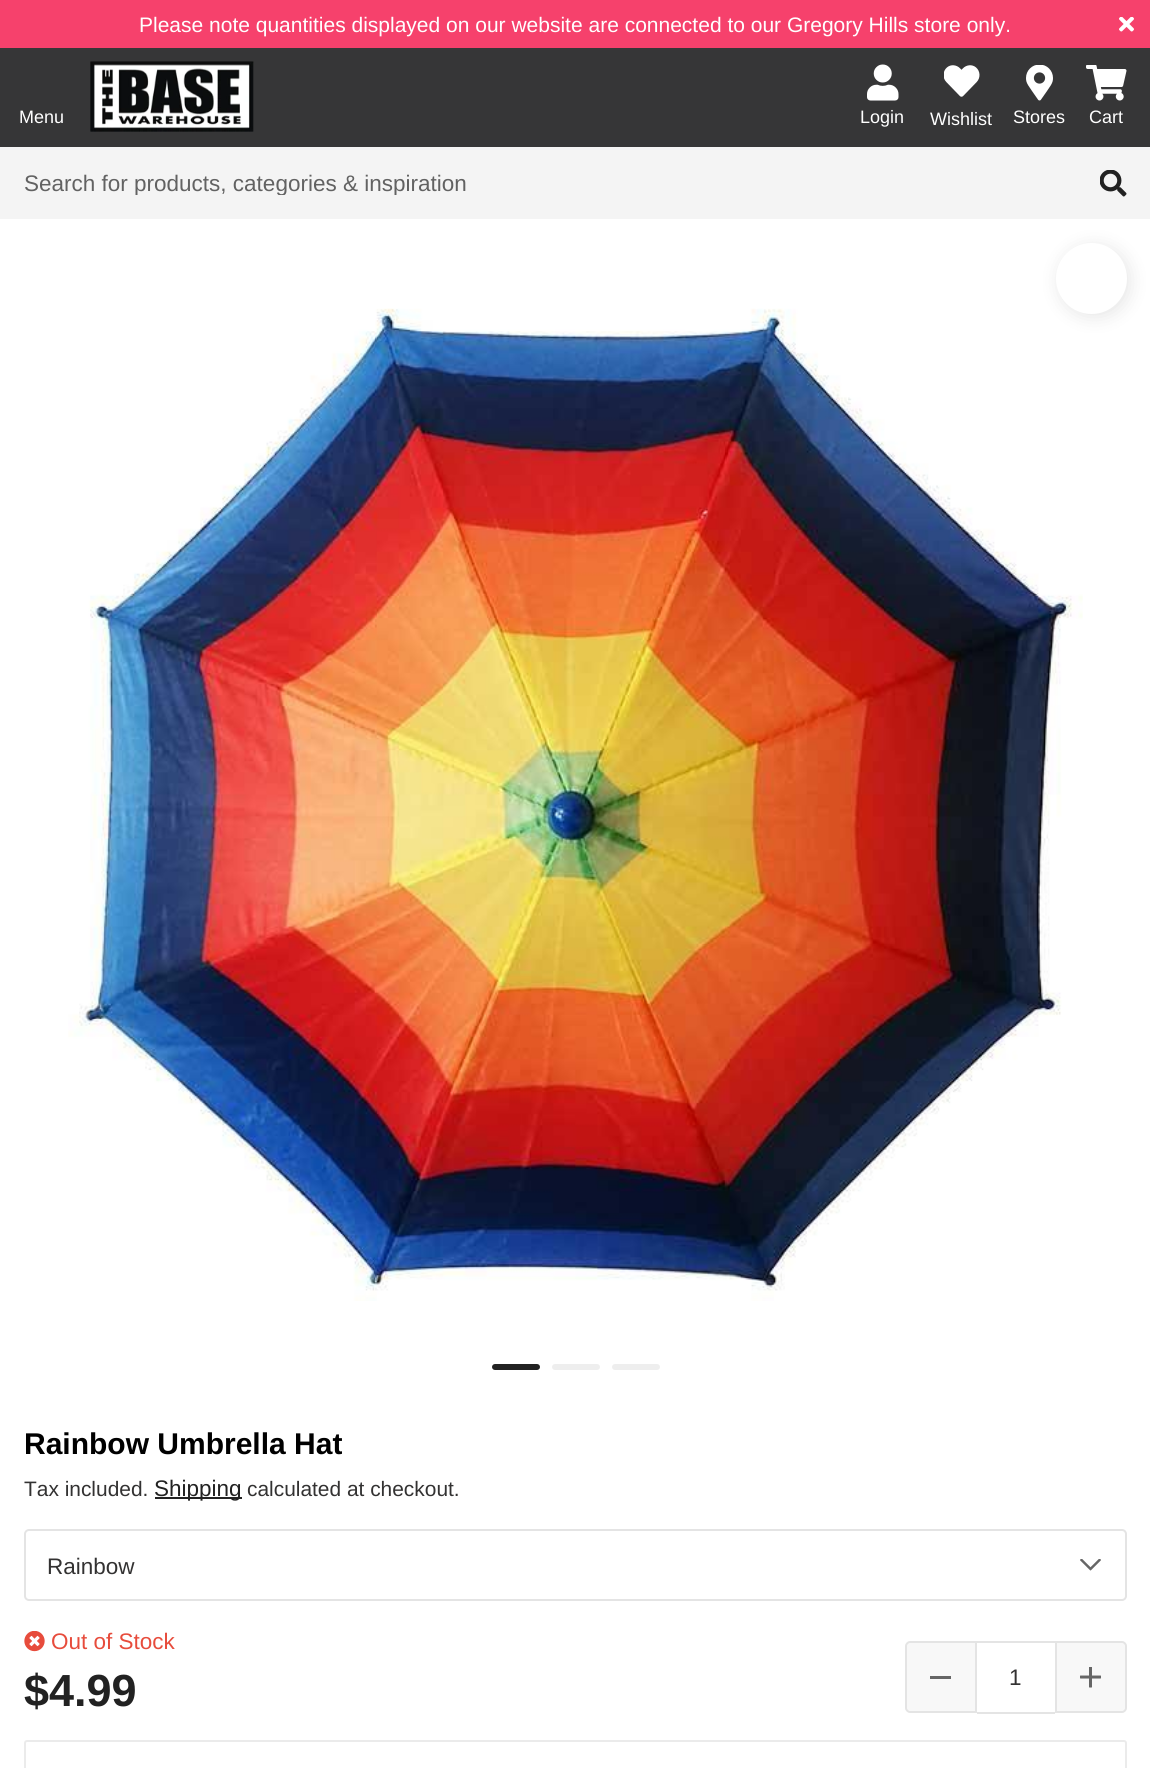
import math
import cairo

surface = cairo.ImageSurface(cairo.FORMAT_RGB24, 1150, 1768)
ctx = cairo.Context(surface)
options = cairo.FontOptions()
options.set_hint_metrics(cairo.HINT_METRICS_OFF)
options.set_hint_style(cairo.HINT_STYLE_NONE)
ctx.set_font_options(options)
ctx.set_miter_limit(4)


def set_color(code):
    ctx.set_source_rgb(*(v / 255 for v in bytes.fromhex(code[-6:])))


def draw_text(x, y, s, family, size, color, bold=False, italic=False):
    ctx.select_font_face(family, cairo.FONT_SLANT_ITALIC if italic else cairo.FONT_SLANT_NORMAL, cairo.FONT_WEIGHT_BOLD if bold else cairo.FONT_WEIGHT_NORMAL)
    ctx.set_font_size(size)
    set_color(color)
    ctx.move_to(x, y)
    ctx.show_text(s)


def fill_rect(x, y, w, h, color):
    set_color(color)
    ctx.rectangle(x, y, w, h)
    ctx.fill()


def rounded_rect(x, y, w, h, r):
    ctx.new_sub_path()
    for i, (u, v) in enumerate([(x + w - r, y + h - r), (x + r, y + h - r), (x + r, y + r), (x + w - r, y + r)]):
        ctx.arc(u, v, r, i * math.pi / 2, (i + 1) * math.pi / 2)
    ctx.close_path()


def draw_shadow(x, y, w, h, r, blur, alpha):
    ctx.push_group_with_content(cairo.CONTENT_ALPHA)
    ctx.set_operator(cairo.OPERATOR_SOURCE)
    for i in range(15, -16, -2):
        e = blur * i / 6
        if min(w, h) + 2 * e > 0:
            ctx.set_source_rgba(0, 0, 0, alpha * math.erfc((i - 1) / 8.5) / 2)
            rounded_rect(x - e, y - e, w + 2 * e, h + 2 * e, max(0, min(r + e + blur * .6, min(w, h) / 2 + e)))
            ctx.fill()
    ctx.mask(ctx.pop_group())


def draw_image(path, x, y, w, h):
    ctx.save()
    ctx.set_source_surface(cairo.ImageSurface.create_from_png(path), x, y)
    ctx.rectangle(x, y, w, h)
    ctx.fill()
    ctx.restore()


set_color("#ffffff")
ctx.paint()
fill_rect(0, 0, 1150, 48, "#f6416c")
draw_text(139, 32, "Please note quantities displayed on our website are connected to our Gregory Hills store only.", "Liberation Sans", 21, "#ffffff")
draw_image("assets/img1.png", 1119, 17, 15, 15)
fill_rect(0, 48, 1150, 99, "#363637")
draw_text(19, 123, "Menu", "Liberation Sans", 18, "#ffffff")
draw_image("assets/img2.png", 90, 61, 164, 71)
draw_image("assets/img3.png", 867, 64, 32, 37)
draw_text(860, 123, "Login", "Liberation Sans", 18, "#ffffff")
draw_image("assets/img4.png", 944, 65, 36, 32)
draw_text(930, 125, "Wishlist", "Liberation Sans", 18, "#ffffff")
draw_image("assets/img5.png", 1026, 65, 27, 36)
draw_text(1013, 123, "Stores", "Liberation Sans", 18, "#ffffff")
draw_image("assets/img6.png", 1086, 65, 41, 36)
draw_text(1089, 123, "Cart", "Liberation Sans", 18, "#ffffff")
draw_image("assets/img8.png", 68, 308, 1015, 993)
set_color("#000000")
draw_shadow(1059, 246, 71, 71, 35.5, 9, 0.1)
fill_rect(0, 147, 1150, 72, "#f4f4f4")
ctx.save()
ctx.rectangle(24, 170, 1103, 25)
ctx.clip()
draw_text(24, 191, "Search for products, categories & inspiration", "Liberation Sans", 22.5, "#626262")
ctx.restore()
draw_image("assets/img7.png", 1100, 170, 27, 27)
set_color("#ffffff")
ctx.arc(1091.5, 278.5, 35.5, 0, 2 * math.pi)
ctx.fill()
set_color("#222222")
rounded_rect(492, 1364, 48, 6, 3)
ctx.fill()
set_color("#eeeeee")
rounded_rect(552, 1364, 48, 6, 3)
ctx.fill()
rounded_rect(612, 1364, 48, 6, 3)
ctx.fill()
draw_text(24, 1454, "Rainbow Umbrella Hat", "Liberation Sans", 30, "#000000", bold=True)
draw_text(24, 1496, "Tax included.", "Liberation Sans", 20.9, "#333232")
fill_rect(155, 1497, 87, 2, "#222222")
draw_text(154, 1496, "Shipping", "Liberation Sans", 22.5, "#222222")
draw_text(247, 1496, "calculated at checkout.", "Liberation Sans", 20.9, "#333232")
draw_image("assets/img9.png", 1080, 1559, 21, 12)
rounded_rect(25, 1530, 1101, 70, 4)
set_color("#e4e4e4")
ctx.stroke()
draw_text(47, 1574, "Rainbow", "Liberation Sans", 22.5, "#333232")
draw_image("assets/img10.png", 24, 1631, 21, 21)
draw_text(51, 1649, "Out of Stock", "Liberation Sans", 22.5, "#e74c3c")
draw_text(24, 1706, "$4.99", "Liberation Sans", 45, "#222222", bold=True)
set_color("#f8f8f8")
ctx.new_path()
ctx.move_to(910, 1642)
ctx.line_to(976, 1642)
ctx.line_to(976, 1712)
ctx.line_to(910, 1712)
ctx.curve_to(908, 1712, 906, 1710, 906, 1708)
ctx.line_to(906, 1646)
ctx.curve_to(906, 1644, 908, 1642, 910, 1642)
ctx.close_path()
ctx.fill_preserve()
set_color("#e4e4e4")
ctx.stroke()
fill_rect(930, 1676, 21, 3, "#666666")
fill_rect(977, 1641, 78, 2, "#e4e4e4")
fill_rect(977, 1712, 78, 2, "#e4e4e4")
draw_text(1009, 1685, "1", "Liberation Sans", 22.5, "#333232")
set_color("#f8f8f8")
ctx.new_path()
ctx.move_to(1056, 1642)
ctx.line_to(1122, 1642)
ctx.curve_to(1124, 1642, 1126, 1644, 1126, 1646)
ctx.line_to(1126, 1708)
ctx.curve_to(1126, 1710, 1124, 1712, 1122, 1712)
ctx.line_to(1056, 1712)
ctx.close_path()
ctx.fill_preserve()
set_color("#e4e4e4")
ctx.stroke()
draw_image("assets/img11.png", 1080, 1667, 21, 21)
rounded_rect(25, 1741, 1101, 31, 2)
set_color("#ebebeb")
ctx.stroke()
surface.write_to_png("output.png")
